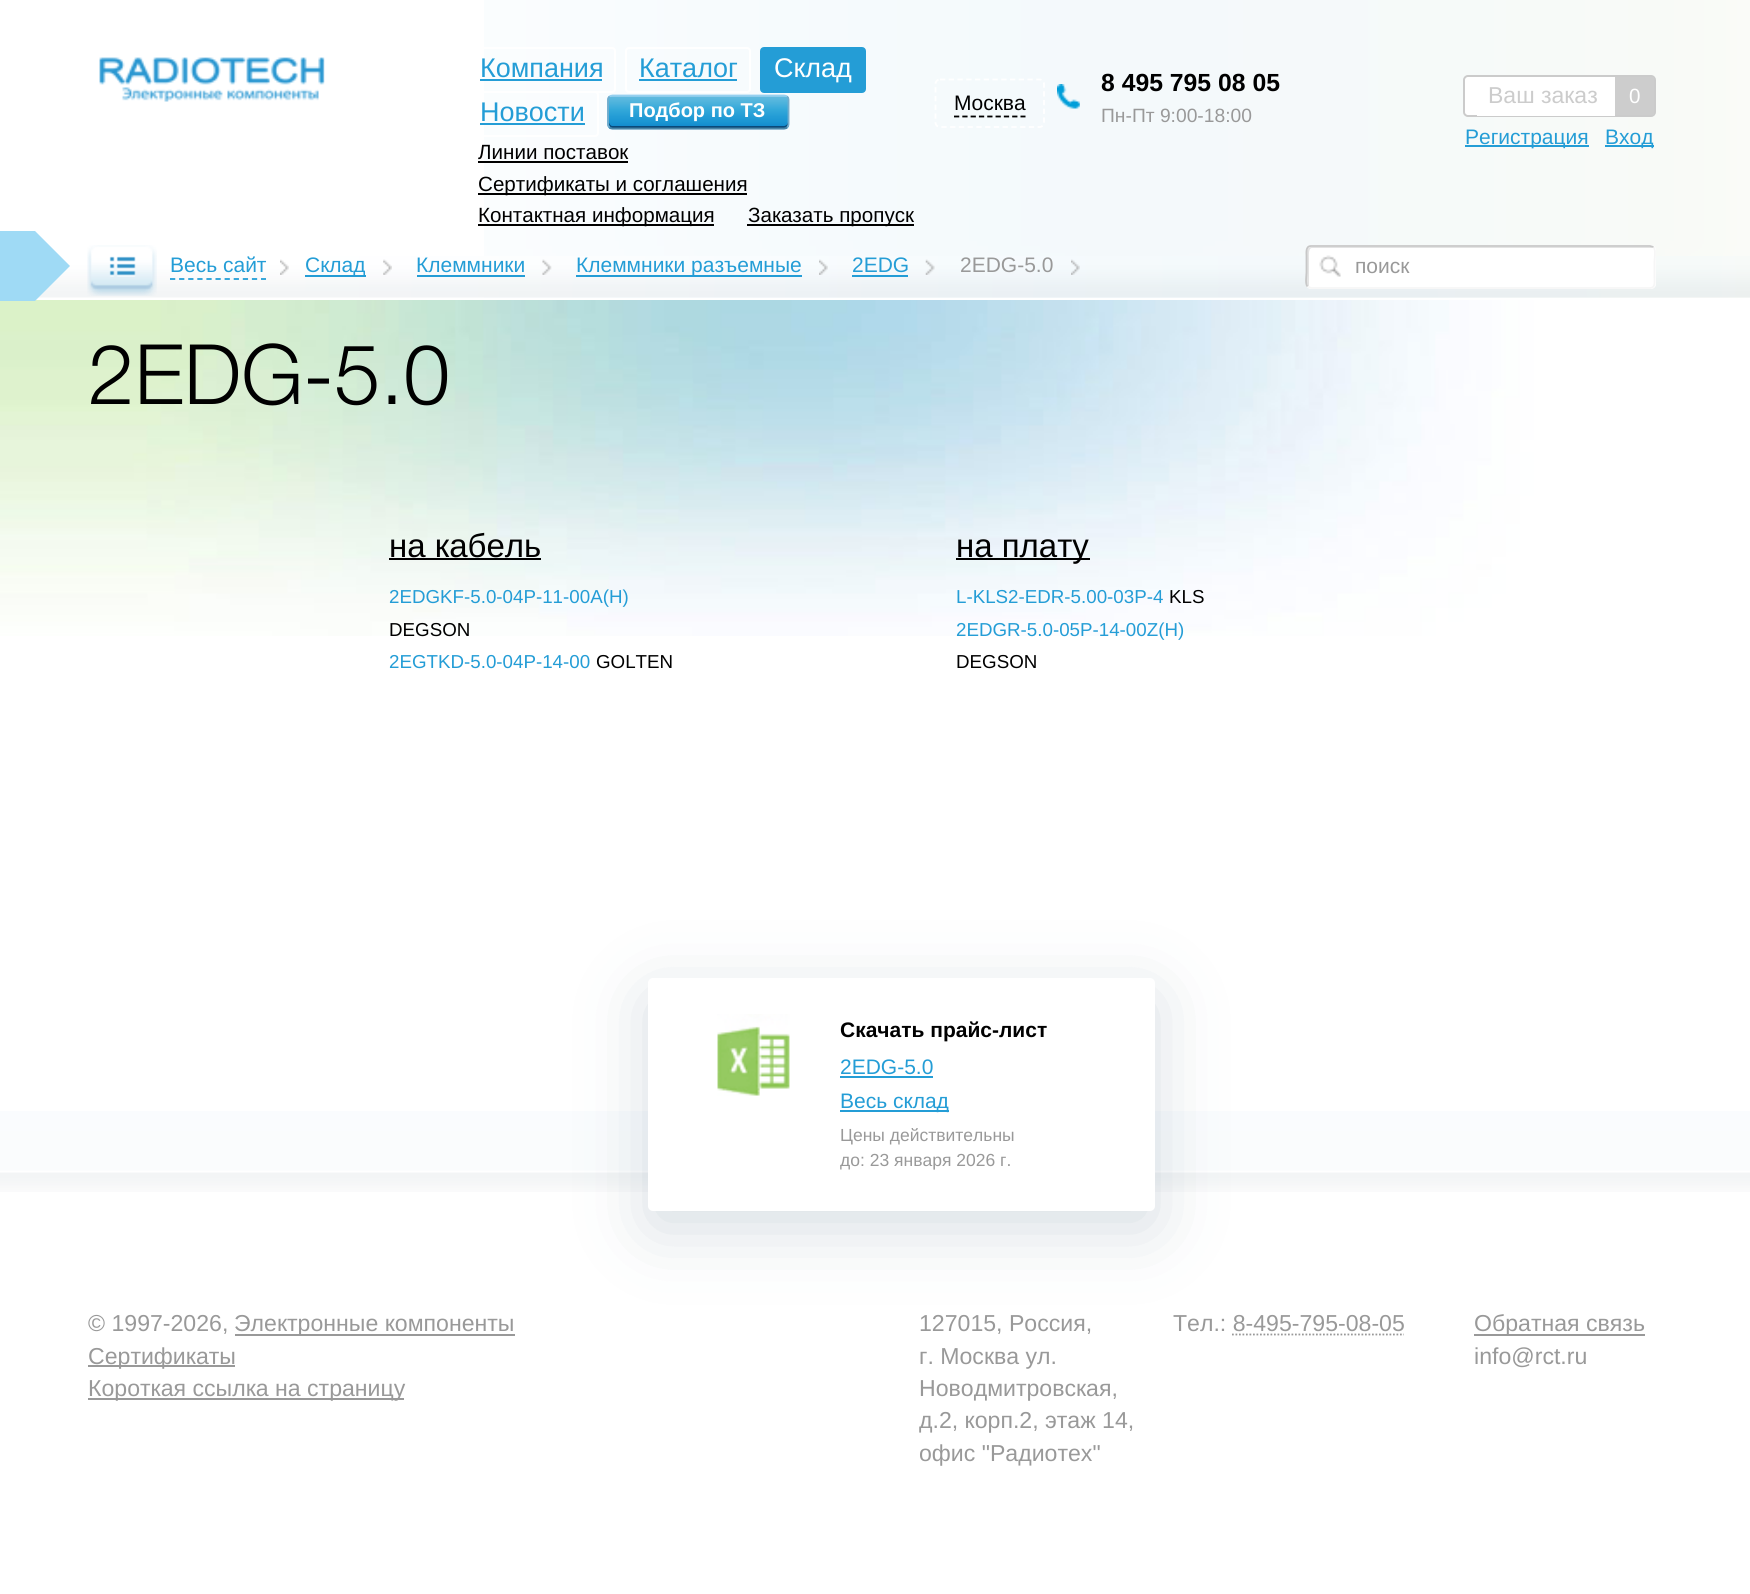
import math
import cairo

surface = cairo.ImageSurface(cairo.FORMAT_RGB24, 1750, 1594)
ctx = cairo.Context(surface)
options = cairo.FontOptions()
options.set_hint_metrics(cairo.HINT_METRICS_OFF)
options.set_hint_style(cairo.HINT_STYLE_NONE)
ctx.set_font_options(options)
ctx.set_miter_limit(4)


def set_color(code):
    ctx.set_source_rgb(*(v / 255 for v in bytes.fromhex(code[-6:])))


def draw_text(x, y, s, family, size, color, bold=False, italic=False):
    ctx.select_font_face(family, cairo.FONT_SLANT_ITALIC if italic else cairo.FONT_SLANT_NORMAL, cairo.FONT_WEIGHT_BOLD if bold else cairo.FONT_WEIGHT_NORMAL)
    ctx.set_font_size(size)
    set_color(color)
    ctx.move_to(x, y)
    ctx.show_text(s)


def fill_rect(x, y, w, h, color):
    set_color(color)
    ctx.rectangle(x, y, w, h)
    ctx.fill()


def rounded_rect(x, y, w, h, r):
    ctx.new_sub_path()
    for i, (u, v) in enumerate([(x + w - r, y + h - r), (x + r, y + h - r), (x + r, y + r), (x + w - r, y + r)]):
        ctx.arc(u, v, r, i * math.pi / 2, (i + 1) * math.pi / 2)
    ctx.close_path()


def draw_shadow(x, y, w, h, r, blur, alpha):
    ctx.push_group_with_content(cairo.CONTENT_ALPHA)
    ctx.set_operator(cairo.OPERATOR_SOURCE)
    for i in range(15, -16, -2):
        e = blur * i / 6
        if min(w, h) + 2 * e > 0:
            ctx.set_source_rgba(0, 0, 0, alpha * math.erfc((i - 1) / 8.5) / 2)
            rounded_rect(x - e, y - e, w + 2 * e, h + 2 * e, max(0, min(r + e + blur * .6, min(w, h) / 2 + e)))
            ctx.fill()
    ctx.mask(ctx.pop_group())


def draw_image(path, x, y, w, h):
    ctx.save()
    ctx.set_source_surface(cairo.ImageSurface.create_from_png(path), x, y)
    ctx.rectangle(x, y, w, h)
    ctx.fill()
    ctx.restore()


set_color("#ffffff")
ctx.paint()
draw_image("assets/img1.png", 484, 0, 1266, 298)
draw_image("assets/img2.png", 38, 256, 1712, 42)
draw_image("assets/img3.png", 99, 57, 226, 45)
rounded_rect(467, 48, 148, 44, 3)
set_color("#ffffff")
ctx.stroke()
draw_text(480, 77, "Компания", "Liberation Sans", 27, "#249dd6")
fill_rect(480, 79, 122, 2, "#249dd6")
rounded_rect(626, 48, 124, 44, 3)
set_color("#ffffff")
ctx.stroke()
draw_text(639, 77, "Каталог", "Liberation Sans", 27, "#249dd6")
fill_rect(639, 79, 98, 2, "#249dd6")
rounded_rect(761, 48, 104, 44, 3)
ctx.fill_preserve()
ctx.stroke()
draw_text(774, 77, "Склад", "Liberation Sans", 27, "#ffffff")
rounded_rect(467, 92, 131, 44, 3)
ctx.stroke()
draw_text(480, 121, "Новости", "Liberation Sans", 27, "#249dd6")
fill_rect(480, 123, 105, 2, "#249dd6")
draw_image("assets/img4.png", 607, 96, 183, 34)
set_color("#094979")
ctx.new_path()
ctx.move_to(609, 122)
ctx.line_to(609, 124)
ctx.curve_to(609, 126, 611, 128, 613, 128)
ctx.line_to(784, 128)
ctx.curve_to(786, 128, 788, 126, 788, 124)
ctx.line_to(788, 122)
ctx.curve_to(788, 124, 786, 126, 784, 126)
ctx.line_to(612, 126)
ctx.curve_to(611, 126, 609, 124, 609, 122)
ctx.close_path()
ctx.fill()
ctx.new_path()
ctx.move_to(609.5, 96.5)
ctx.curve_to(610, 96, 611.5, 95.5, 612.5, 95.5)
ctx.line_to(784, 95.5)
ctx.curve_to(785, 95.5, 786.5, 96, 787, 96.5)
set_color("#96d0f0")
ctx.set_line_width(1.8)
ctx.stroke()
ctx.new_path()
ctx.move_to(787, 96.5)
ctx.curve_to(788, 97.5, 788.5, 98.5, 788.5, 100)
ctx.line_to(788.5, 124)
ctx.curve_to(788.5, 125.5, 788, 126.5, 787, 127.5)
set_color("#73accc")
ctx.stroke()
ctx.new_path()
ctx.move_to(787, 127.5)
ctx.curve_to(786.5, 128, 785, 128.5, 784, 128.5)
ctx.line_to(612.5, 128.5)
ctx.curve_to(611.5, 128.5, 610, 128, 609.5, 127.5)
set_color("#4a84a4")
ctx.stroke()
ctx.new_path()
ctx.move_to(609.5, 127.5)
ctx.curve_to(608.5, 126.5, 608, 125.5, 608, 124)
ctx.line_to(608, 100)
ctx.curve_to(608, 98.5, 608.5, 97.5, 609.5, 96.5)
set_color("#73accc")
ctx.stroke()
draw_text(629, 117, "Подбор по ТЗ", "Liberation Sans", 20, "#ffffff", bold=True)
draw_text(478, 159, "Линии поставок", "Liberation Sans", 20.6, "#000000")
fill_rect(478, 161, 150, 2, "#000000")
fill_rect(478, 193, 269, 2, "#000000")
draw_text(478, 191, "Сертификаты и соглашения", "Liberation Sans", 20.6, "#000000")
fill_rect(478, 224, 236, 2, "#000000")
draw_text(478, 222, "Контактная информация", "Liberation Sans", 20.6, "#000000")
fill_rect(747, 224, 167, 2, "#000000")
draw_text(748, 222, "Заказать пропуск", "Liberation Sans", 20.6, "#000000")
ctx.new_path()
ctx.move_to(940, 79.5)
ctx.line_to(1039.5, 79.5)
ctx.curve_to(1042, 79.5, 1044, 81.5, 1044, 84)
ctx.line_to(1044, 122.5)
ctx.curve_to(1044, 125, 1042, 127, 1039.5, 127)
ctx.line_to(940, 127)
ctx.curve_to(937.5, 127, 935.5, 125, 935.5, 122.5)
ctx.line_to(935.5, 84)
ctx.curve_to(935.5, 81.5, 937.5, 79.5, 940, 79.5)
ctx.close_path()
set_color("#ffffff")
ctx.set_dash([5.25, 3.5])
ctx.stroke()
draw_text(954, 110, "Москва", "Liberation Sans", 21, "#000000")
ctx.new_path()
ctx.move_to(954, 116.5)
ctx.line_to(1025.5, 116.5)
ctx.set_dash([5.25, 3.06])
ctx.stroke()
draw_image("assets/img5.png", 1057, 84, 23, 25)
draw_text(1101, 91, "8 495 795 08 05", "Liberation Sans", 24.75, "#000000", bold=True)
draw_text(1101, 122, "Пн-Пт 9:00-18:00", "Liberation Sans", 19.25, "#999999")
set_color("#ffffff")
rounded_rect(1464, 76, 191, 40, 4)
ctx.fill_preserve()
set_color("#cbcbcb")
ctx.set_line_width(2)
ctx.set_dash([])
ctx.stroke()
fill_rect(1477, 115, 138, 1, "#ffffff")
draw_text(1488, 103, "Ваш заказ", "Liberation Sans", 23, "#cccccc")
fill_rect(1615, 77, 39, 38, "#cdcdcd")
draw_text(1629, 103, "0", "Liberation Sans", 20.6, "#ffffff")
fill_rect(1465, 145, 124, 2, "#249dd6")
draw_text(1465, 144, "Регистрация", "Liberation Sans", 21, "#249dd6")
fill_rect(1605, 145, 49, 2, "#249dd6")
draw_text(1605, 144, "Вход", "Liberation Sans", 21, "#249dd6")
draw_image("assets/img6.png", 87, 245, 70, 51)
draw_image("assets/img14.png", 0, 300, 1750, 336)
fill_rect(0, 231, 35, 70, "#9fdaf5")
ctx.new_path()
ctx.move_to(35, 301)
ctx.line_to(35, 231)
ctx.line_to(70, 266)
ctx.close_path()
ctx.fill()
ctx.new_path()
ctx.move_to(170, 279)
ctx.line_to(266, 279)
set_color("#249dd6")
ctx.set_line_width(1.8)
ctx.set_dash([5.25, 3.85])
ctx.stroke()
draw_text(170, 272, "Весь сайт", "Liberation Sans", 21, "#249dd6")
draw_image("assets/img7.png", 280, 259, 9, 16)
draw_image("assets/img8.png", 383, 259, 9, 16)
fill_rect(305, 275, 61, 2, "#249dd6")
draw_text(305, 272, "Склад", "Liberation Sans", 21, "#249dd6")
draw_image("assets/img9.png", 542, 259, 10, 16)
draw_text(416, 272, "Клеммники", "Liberation Sans", 21, "#249dd6")
fill_rect(417, 275, 108, 2, "#249dd6")
draw_image("assets/img10.png", 819, 259, 9, 16)
fill_rect(576, 275, 226, 2, "#249dd6")
draw_text(576, 272, "Клеммники разъемные", "Liberation Sans", 21, "#249dd6")
draw_image("assets/img11.png", 925, 259, 10, 16)
draw_text(852, 272, "2EDG", "Liberation Sans", 21, "#249dd6")
fill_rect(852, 275, 56, 2, "#249dd6")
draw_image("assets/img12.png", 1071, 259, 9, 16)
draw_text(960, 272, "2EDG-5.0", "Liberation Sans", 21, "#999999")
set_color("#ffffff")
rounded_rect(1306, 245, 350, 44, 5)
ctx.fill()
set_color("#e3e3e3")
ctx.new_path()
ctx.move_to(1312, 248)
ctx.line_to(1653, 248)
ctx.curve_to(1652, 247, 1651, 247, 1650, 247)
ctx.line_to(1311, 247)
ctx.curve_to(1309, 247, 1307, 249, 1307, 251)
ctx.line_to(1307, 283)
ctx.curve_to(1307, 285, 1308, 286, 1309, 287)
ctx.line_to(1309, 258)
ctx.curve_to(1309, 256, 1308, 248, 1312, 248)
ctx.close_path()
ctx.fill()
ctx.new_path()
ctx.move_to(1653.5, 247)
ctx.curve_to(1656, 250, 1654.5, 258.5, 1654.5, 261.5)
ctx.line_to(1654.5, 278)
ctx.curve_to(1654.5, 281.5, 1655.5, 288, 1650, 288)
ctx.line_to(1311, 288)
ctx.line_to(1307.5, 286.5)
set_color("#f6f6f6")
ctx.set_dash([])
ctx.stroke()
ctx.new_path()
ctx.move_to(1307.5, 286.5)
ctx.curve_to(1305, 284, 1306.5, 275.5, 1306.5, 272.5)
ctx.line_to(1306.5, 256)
ctx.curve_to(1306.5, 252.5, 1305.5, 246, 1311, 246)
ctx.line_to(1650, 246)
ctx.line_to(1653.5, 247)
set_color("#c7c7c7")
ctx.stroke()
draw_image("assets/img13.png", 1319, 255, 22, 22)
draw_text(1355, 273, "поиск", "Liberation Sans", 21, "#999999")
draw_text(88, 404, "2EDG-5.0", "Helvetica Neue Light", 83.5, "#000000")
draw_image("assets/img15.png", 0, 1111, 1750, 81)
draw_text(389, 557, "на кабель", "Liberation Sans", 33, "#000000")
fill_rect(389, 558, 152, 2, "#000000")
draw_text(389, 603, "2EDGKF-5.0-04P-11-00A(H)", "Liberation Sans", 18.75, "#249dd6")
draw_text(389, 636, "DEGSON", "Liberation Sans", 18.75, "#000000")
draw_text(389, 668, "2EGTKD-5.0-04P-14-00", "Liberation Sans", 18.75, "#249dd6")
draw_text(596, 668, "GOLTEN", "Liberation Sans", 18.75, "#000000")
fill_rect(956, 558, 134, 2, "#000000")
draw_text(956, 557, "на плату", "Liberation Sans", 33, "#000000")
draw_text(956, 603, "L-KLS2-EDR-5.00-03P-4", "Liberation Sans", 18.75, "#249dd6")
draw_text(1169, 603, "KLS", "Liberation Sans", 18.75, "#000000")
draw_text(956, 636, "2EDGR-5.0-05P-14-00Z(H)", "Liberation Sans", 18.75, "#249dd6")
draw_text(956, 668, "DEGSON", "Liberation Sans", 18.75, "#000000")
ctx.new_path()
ctx.move_to(1232, 1334.5)
ctx.line_to(1404, 1334.5)
set_color("#999999")
ctx.set_dash([1.75, 1.75])
ctx.stroke()
set_color("#32566c")
draw_shadow(648, 996, 507, 233, 5, 35, 0.2)
set_color("#ffffff")
rounded_rect(648, 978, 507, 233, 5)
ctx.fill()
draw_image("assets/img16.png", 717, 1014, 73, 82)
draw_text(840, 1037, "Скачать прайс-лист", "Liberation Sans", 21, "#000000", bold=True)
draw_text(840, 1074, "2EDG-5.0", "Liberation Sans", 21, "#249dd6")
fill_rect(840, 1076, 93, 2, "#249dd6")
fill_rect(840, 1110, 109, 2, "#249dd6")
draw_text(840, 1108, "Весь склад", "Liberation Sans", 21, "#249dd6")
draw_text(840, 1141, "Цены действительны", "Liberation Sans", 17.5, "#999999")
draw_text(840, 1166, "до: 23 января 2026 г.", "Liberation Sans", 17.5, "#999999")
draw_text(88, 1331, "© 1997-2026,", "Liberation Sans", 23.1, "#999999")
fill_rect(235, 1334, 280, 2, "#999999")
draw_text(234, 1331, "Электронные компоненты", "Liberation Sans", 23.1, "#999999")
fill_rect(88, 1365, 147, 2, "#999999")
draw_text(88, 1364, "Сертификаты", "Liberation Sans", 23.1, "#999999")
fill_rect(88, 1398, 316, 2, "#999999")
draw_text(88, 1396, "Короткая ссылка на страницу", "Liberation Sans", 23.1, "#999999")
draw_text(919, 1331, "127015, Россия,", "Liberation Sans", 23.1, "#999999")
draw_text(919, 1364, "г. Москва ул.", "Liberation Sans", 23.1, "#999999")
draw_text(919, 1396, "Новодмитровская,", "Liberation Sans", 23.1, "#999999")
draw_text(919, 1428, "д.2, корп.2, этаж 14,", "Liberation Sans", 23.1, "#999999")
draw_text(919, 1461, "офис \"Радиотех\"", "Liberation Sans", 23.1, "#999999")
draw_text(1173, 1331, "Тел.: 8-495-795-08-05", "Liberation Sans", 23.1, "#999999")
fill_rect(1474, 1334, 171, 2, "#999999")
draw_text(1474, 1331, "Обратная связь", "Liberation Sans", 23.1, "#999999")
draw_text(1474, 1364, "info@rct.ru", "Liberation Sans", 23.1, "#999999")
surface.write_to_png("output.png")
